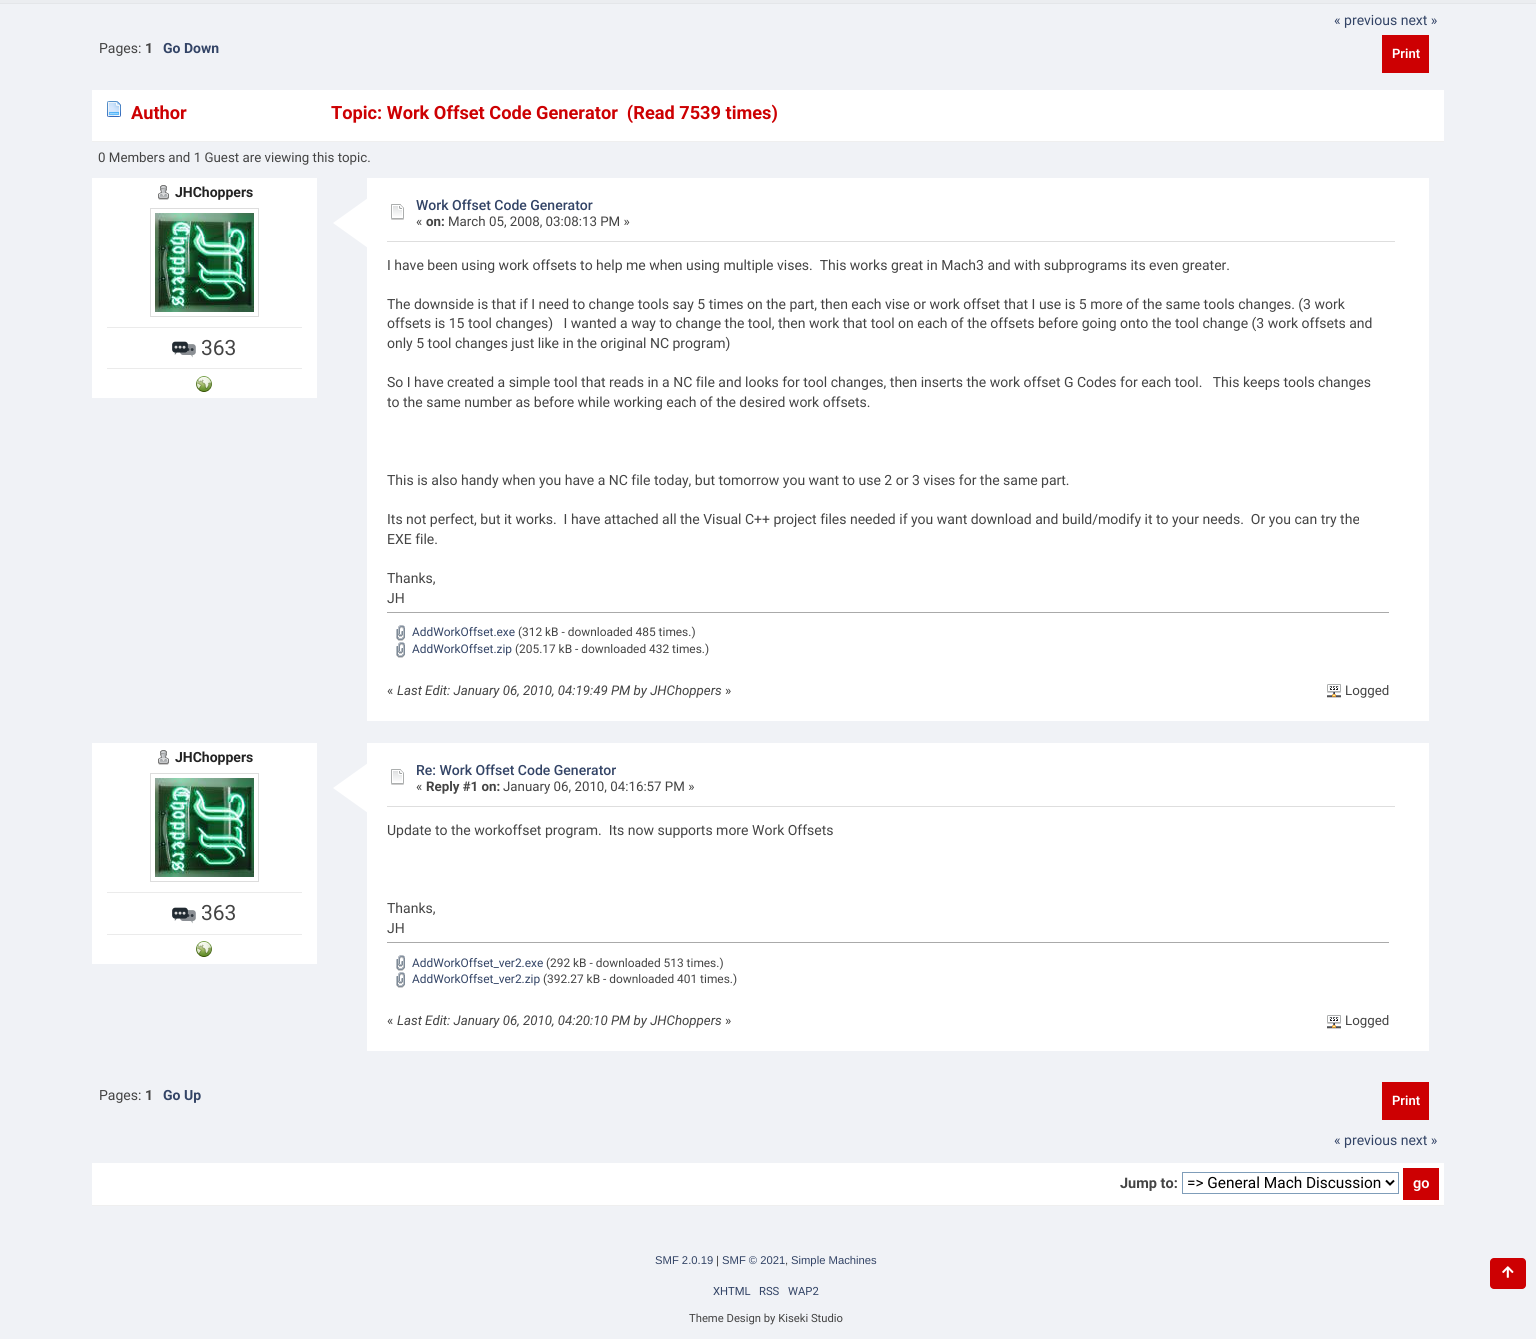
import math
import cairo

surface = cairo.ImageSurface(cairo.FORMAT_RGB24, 1536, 1339)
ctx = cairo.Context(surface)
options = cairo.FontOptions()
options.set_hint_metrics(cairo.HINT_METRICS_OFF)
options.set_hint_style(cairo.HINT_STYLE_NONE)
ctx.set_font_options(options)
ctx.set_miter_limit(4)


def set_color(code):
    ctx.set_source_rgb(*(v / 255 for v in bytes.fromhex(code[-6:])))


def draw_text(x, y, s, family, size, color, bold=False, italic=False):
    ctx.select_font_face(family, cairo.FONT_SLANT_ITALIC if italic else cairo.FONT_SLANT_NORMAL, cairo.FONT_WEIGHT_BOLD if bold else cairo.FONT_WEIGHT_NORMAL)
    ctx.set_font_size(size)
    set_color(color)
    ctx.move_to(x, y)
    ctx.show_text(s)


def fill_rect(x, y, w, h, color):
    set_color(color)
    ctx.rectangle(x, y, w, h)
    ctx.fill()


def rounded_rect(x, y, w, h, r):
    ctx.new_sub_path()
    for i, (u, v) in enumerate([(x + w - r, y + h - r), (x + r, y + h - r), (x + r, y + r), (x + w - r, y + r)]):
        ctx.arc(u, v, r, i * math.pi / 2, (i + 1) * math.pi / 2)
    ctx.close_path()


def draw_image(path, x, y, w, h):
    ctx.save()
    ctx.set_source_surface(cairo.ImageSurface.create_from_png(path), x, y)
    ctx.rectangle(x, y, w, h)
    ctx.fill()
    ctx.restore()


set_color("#f0f2f6")
ctx.paint()
fill_rect(0, 0, 1536, 3, "#ebedf0")
fill_rect(0, 3, 1536, 1, "#e4e6e9")
draw_text(1334, 25, "« previous next »", "Roboto", 14, "#334466")
draw_text(99, 53, "Pages:", "Roboto", 14, "#444444")
draw_text(145, 53, "1", "Roboto", 14, "#444444", bold=True)
draw_text(163, 53, "Go Down", "Roboto", 14, "#334466", bold=True)
fill_rect(1382, 35, 47, 38, "#cd0002")
draw_text(1392, 58, "Print", "Roboto SemiBold", 13, "#ffffff")
fill_rect(92, 90, 1352, 51, "#ffffff")
fill_rect(92, 141, 1352, 1, "#efefef")
draw_image("assets/img1.png", 107, 101, 14, 16)
draw_text(131, 119, "Author", "Roboto", 18.2, "#cd0002", bold=True)
draw_text(331, 119, "Topic: Work Offset Code Generator  (Read 7539 times)", "Roboto", 18.2, "#cd0002", bold=True)
draw_text(98, 162, "0 Members and 1 Guest are viewing this topic.", "Roboto", 13.3, "#444444")
fill_rect(92, 178, 225, 220, "#ffffff")
draw_image("assets/img2.png", 158, 185, 11, 15)
draw_text(175, 197, "JHChoppers", "Roboto", 14, "#222222", bold=True)
ctx.rectangle(150.5, 208.5, 108, 108)
set_color("#dddddd")
ctx.set_line_width(1)
ctx.stroke()
draw_image("assets/img3.png", 155, 213, 99, 99)
fill_rect(107, 327, 195, 1, "#ebebeb")
fill_rect(107, 368, 195, 1, "#ebebeb")
draw_image("assets/img4.png", 172, 341, 24, 17)
draw_text(201, 355, "363", "Roboto", 21, "#444444")
draw_image("assets/img5.png", 196, 376, 16, 16)
fill_rect(367, 178, 1062, 543, "#ffffff")
ctx.new_path()
ctx.move_to(368, 198)
ctx.line_to(368, 248)
ctx.line_to(333, 223)
ctx.close_path()
ctx.fill()
draw_image("assets/img6.png", 391, 204, 13, 16)
draw_text(416, 210, "Work Offset Code Generator", "Roboto Medium", 14, "#334466")
draw_text(416, 226, "«", "Roboto", 13.3, "#444444")
draw_text(426, 226, "on:", "Roboto", 13.3, "#444444", bold=True)
draw_text(448, 226, "March 05, 2008, 03:08:13 PM »", "Roboto", 13.3, "#444444")
fill_rect(387, 241, 1008, 1, "#dedede")
draw_text(387, 270, "I have been using work offsets to help me when using multiple vises.  This works great in Mach3 and with subprograms its even greater.", "Roboto", 14, "#444444")
draw_text(387, 309, "The downside is that if I need to change tools say 5 times on the part, then each vise or work offset that I use is 5 more of the same tools changes. (3 work", "Roboto", 14, "#444444")
draw_text(387, 328, "offsets is 15 tool changes)   I wanted a way to change the tool, then work that tool on each of the offsets before going onto the tool change (3 work offsets and", "Roboto", 14, "#444444")
draw_text(387, 348, "only 5 tool changes just like in the original NC program)", "Roboto", 14, "#444444")
draw_text(387, 387, "So I have created a simple tool that reads in a NC file and looks for tool changes, then inserts the work offset G Codes for each tool.   This keeps tools changes", "Roboto", 14, "#444444")
draw_text(387, 407, "to the same number as before while working each of the desired work offsets.", "Roboto", 14, "#444444")
draw_text(387, 485, "This is also handy when you have a NC file today, but tomorrow you want to use 2 or 3 vises for the same part.", "Roboto", 14, "#444444")
draw_text(387, 524, "Its not perfect, but it works.  I have attached all the Visual C++ project files needed if you want download and build/modify it to your needs.  Or you can try the", "Roboto", 14, "#444444")
draw_text(387, 544, "EXE file.", "Roboto", 14, "#444444")
draw_text(387, 583, "Thanks,", "Roboto", 14, "#444444")
draw_text(387, 603, "JH", "Roboto", 14, "#444444")
fill_rect(387, 612, 1002, 1, "#aaaaaa")
draw_image("assets/img7.png", 396, 625, 9, 16)
draw_text(412, 636, "AddWorkOffset.exe", "Roboto", 11.9, "#334466")
draw_text(518, 636, "(312 kB - downloaded 485 times.)", "Roboto", 11.9, "#444444")
draw_image("assets/img7.png", 396, 642, 9, 16)
draw_text(412, 653, "AddWorkOffset.zip", "Roboto", 11.9, "#334466")
draw_text(515, 653, "(205.17 kB - downloaded 432 times.)", "Roboto", 11.9, "#444444")
draw_text(387, 695, "«", "Roboto", 13.3, "#444444")
draw_text(397, 695, "Last Edit: January 06, 2010, 04:19:49 PM by JHChoppers", "Roboto", 13.3, "#444444", italic=True)
draw_text(725, 695, "»", "Roboto", 13.3, "#444444")
draw_image("assets/img8.png", 1327, 684, 14, 14)
draw_text(1345, 695, "Logged", "Roboto", 13.3, "#444444")
fill_rect(92, 743, 225, 221, "#ffffff")
draw_image("assets/img2.png", 158, 750, 11, 15)
draw_text(175, 762, "JHChoppers", "Roboto", 14, "#222222", bold=True)
ctx.rectangle(150.5, 773.5, 108, 108)
set_color("#dddddd")
ctx.stroke()
draw_image("assets/img3.png", 155, 778, 99, 99)
fill_rect(107, 892, 195, 1, "#ebebeb")
fill_rect(107, 934, 195, 1, "#ebebeb")
draw_image("assets/img4.png", 172, 907, 24, 17)
draw_text(201, 920, "363", "Roboto", 21, "#444444")
draw_image("assets/img5.png", 196, 941, 16, 16)
fill_rect(367, 743, 1062, 308, "#ffffff")
ctx.new_path()
ctx.move_to(368, 763)
ctx.line_to(368, 813)
ctx.line_to(333, 788)
ctx.close_path()
ctx.fill()
draw_image("assets/img6.png", 391, 769, 13, 16)
draw_text(416, 775, "Re: Work Offset Code Generator", "Roboto Medium", 14, "#334466")
draw_text(416, 791, "«", "Roboto", 13.3, "#444444")
draw_text(426, 791, "Reply #1 on:", "Roboto", 13.3, "#444444", bold=True)
draw_text(503, 791, "January 06, 2010, 04:16:57 PM »", "Roboto", 13.3, "#444444")
fill_rect(387, 806, 1008, 1, "#dedede")
draw_text(387, 835, "Update to the workoffset program.  Its now supports more Work Offsets", "Roboto", 14, "#444444")
draw_text(387, 913, "Thanks,", "Roboto", 14, "#444444")
draw_text(387, 933, "JH", "Roboto", 14, "#444444")
fill_rect(387, 942, 1002, 1, "#aaaaaa")
draw_image("assets/img7.png", 396, 955, 9, 16)
draw_text(412, 967, "AddWorkOffset_ver2.exe", "Roboto", 11.9, "#334466")
draw_text(546, 967, "(292 kB - downloaded 513 times.)", "Roboto", 11.9, "#444444")
draw_image("assets/img7.png", 396, 972, 9, 16)
draw_text(412, 983, "AddWorkOffset_ver2.zip", "Roboto", 11.9, "#334466")
draw_text(543, 983, "(392.27 kB - downloaded 401 times.)", "Roboto", 11.9, "#444444")
draw_text(387, 1025, "«", "Roboto", 13.3, "#444444")
draw_text(397, 1025, "Last Edit: January 06, 2010, 04:20:10 PM by JHChoppers", "Roboto", 13.3, "#444444", italic=True)
draw_text(725, 1025, "»", "Roboto", 13.3, "#444444")
draw_image("assets/img8.png", 1327, 1015, 14, 14)
draw_text(1345, 1025, "Logged", "Roboto", 13.3, "#444444")
draw_text(99, 1100, "Pages:", "Roboto", 14, "#444444")
draw_text(145, 1100, "1", "Roboto", 14, "#444444", bold=True)
draw_text(163, 1100, "Go Up", "Roboto", 14, "#334466", bold=True)
fill_rect(1382, 1082, 47, 38, "#cd0002")
draw_text(1392, 1105, "Print", "Roboto SemiBold", 13, "#ffffff")
draw_text(1334, 1145, "« previous next »", "Roboto", 14, "#334466")
fill_rect(92, 1163, 1352, 42, "#ffffff")
fill_rect(92, 1205, 1352, 1, "#efefef")
draw_text(1120, 1188, "Jump to:", "Roboto", 14.5, "#444444", bold=True)
ctx.rectangle(1182.5, 1172.5, 216, 21)
set_color("#7f9db9")
ctx.stroke()
ctx.new_path()
ctx.move_to(1386, 1180.5)
ctx.line_to(1390, 1184.5)
ctx.line_to(1394, 1180.5)
set_color("#000000")
ctx.set_line_width(2)
ctx.stroke()
draw_text(1187, 1188, "=> General Mach Discussion", "Roboto", 15.4, "#000000")
fill_rect(1403, 1168, 36, 32, "#cd0002")
draw_text(1413, 1188, "go", "Roboto SemiBold", 14.5, "#ffffff")
draw_text(655, 1264, "SMF 2.0.19", "Liberation Sans", 11.25, "#334466")
draw_text(716, 1264, "|", "Liberation Sans", 11.25, "#444444")
draw_text(722, 1264, "SMF © 2021", "Liberation Sans", 11.25, "#334466")
draw_text(785, 1264, ",", "Liberation Sans", 11.25, "#444444")
draw_text(791, 1264, "Simple Machines", "Liberation Sans", 11.25, "#334466")
draw_text(713, 1295, "XHTML", "Roboto", 11.25, "#334466")
draw_text(759, 1295, "RSS", "Roboto", 11.25, "#334466")
draw_text(788, 1295, "WAP2", "Roboto", 11.25, "#334466")
draw_text(689, 1322, "Theme Design by Kiseki Studio", "Roboto", 11.25, "#444444")
set_color("#cd0002")
rounded_rect(1490, 1258, 36, 31, 4)
ctx.fill()
draw_image("assets/img9.png", 1502, 1266, 12, 12)
surface.write_to_png("output.png")
